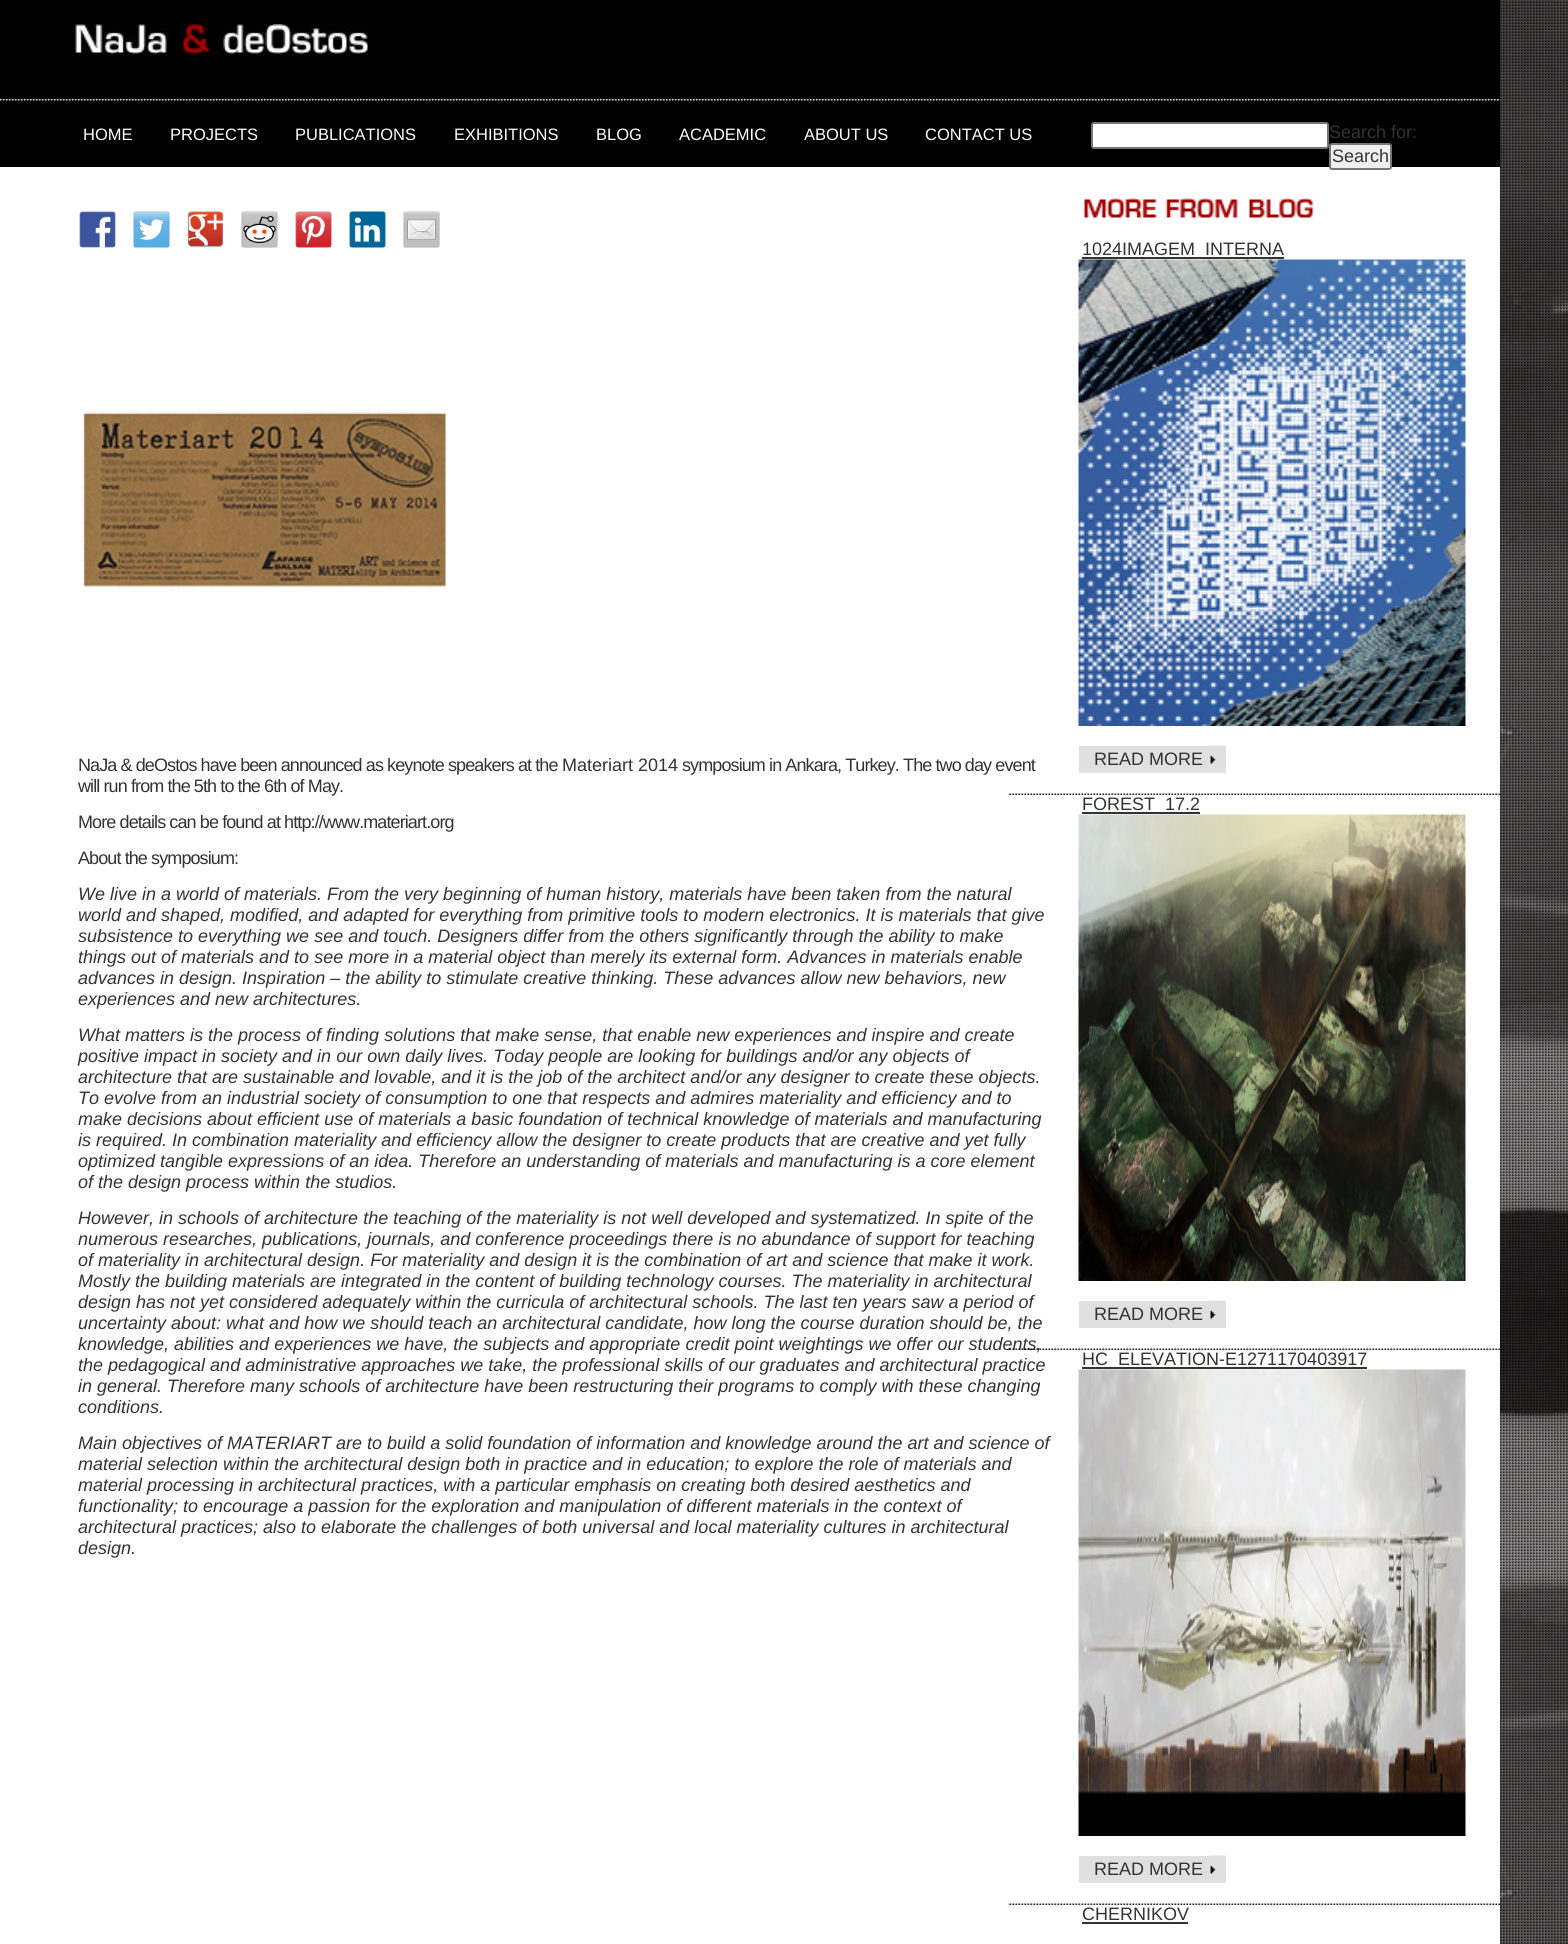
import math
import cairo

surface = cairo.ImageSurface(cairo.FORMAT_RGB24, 1568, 1944)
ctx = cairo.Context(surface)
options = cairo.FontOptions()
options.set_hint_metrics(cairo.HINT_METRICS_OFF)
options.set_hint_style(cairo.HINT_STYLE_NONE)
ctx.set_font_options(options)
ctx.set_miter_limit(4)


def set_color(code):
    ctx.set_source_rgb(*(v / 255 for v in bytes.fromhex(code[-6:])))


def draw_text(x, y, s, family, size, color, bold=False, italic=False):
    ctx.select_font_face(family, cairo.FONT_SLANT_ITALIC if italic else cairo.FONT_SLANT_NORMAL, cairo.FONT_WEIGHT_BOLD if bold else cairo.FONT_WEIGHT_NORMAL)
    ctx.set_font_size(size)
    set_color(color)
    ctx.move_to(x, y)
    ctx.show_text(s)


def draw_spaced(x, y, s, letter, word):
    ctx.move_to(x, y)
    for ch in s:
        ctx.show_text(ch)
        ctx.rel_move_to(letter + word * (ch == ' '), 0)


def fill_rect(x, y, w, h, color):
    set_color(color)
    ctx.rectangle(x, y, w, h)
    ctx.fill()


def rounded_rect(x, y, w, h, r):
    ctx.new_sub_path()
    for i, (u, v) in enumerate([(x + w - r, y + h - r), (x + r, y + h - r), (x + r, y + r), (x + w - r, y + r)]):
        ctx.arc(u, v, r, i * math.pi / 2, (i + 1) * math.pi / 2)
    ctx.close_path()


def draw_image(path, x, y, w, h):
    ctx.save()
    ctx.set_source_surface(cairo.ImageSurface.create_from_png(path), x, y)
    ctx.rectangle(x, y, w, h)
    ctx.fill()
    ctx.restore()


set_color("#ffffff")
ctx.paint()
draw_image("assets/img1.png", 1500, 0, 68, 1944)
fill_rect(0, 0, 1500, 167, "#000000")
draw_image("assets/img2.png", 75, 24, 293, 30)
draw_image("assets/img3.png", 0, 99, 1500, 2)
draw_text(83, 140, "HOME", "Liberation Sans", 16.5, "#ffffff")
draw_text(170, 140, "PROJECTS", "Liberation Sans", 16.5, "#ffffff")
draw_text(295, 140, "PUBLICATIONS", "Liberation Sans", 16.5, "#ffffff")
draw_text(454, 140, "EXHIBITIONS", "Liberation Sans", 16.5, "#ffffff")
draw_text(596, 140, "BLOG", "Liberation Sans", 16.5, "#ffffff")
draw_text(679, 140, "ACADEMIC", "Liberation Sans", 16.5, "#ffffff")
draw_text(804, 140, "ABOUT US", "Liberation Sans", 16.5, "#ffffff")
draw_text(925, 140, "CONTACT US", "Liberation Sans", 16.5, "#ffffff")
rounded_rect(1092, 123, 236, 25, 2)
ctx.fill_preserve()
set_color("#767676")
ctx.stroke()
draw_text(1329, 138, "Search for:", "Liberation Sans", 18, "#333333")
set_color("#efefef")
rounded_rect(1330, 144, 61, 25, 2)
ctx.fill_preserve()
set_color("#767676")
ctx.stroke()
draw_text(1332, 162, "Search", "Liberation Sans", 18, "#333333")
draw_image("assets/img4.png", 79, 211, 37, 37)
draw_image("assets/img5.png", 133, 211, 37, 37)
draw_image("assets/img6.png", 187, 211, 37, 37)
draw_image("assets/img7.png", 241, 211, 37, 37)
draw_image("assets/img8.png", 295, 211, 37, 37)
draw_image("assets/img9.png", 349, 211, 37, 37)
draw_image("assets/img10.png", 403, 211, 37, 37)
draw_image("assets/img11.png", 83, 412, 363, 175)
draw_spaced(78, 771, "NaJa & deOstos have been announced as keynote speakers at the", -0.9, 0)
draw_text(562, 771, "Materiart 2014", "Liberation Sans", 18, "#333333")
draw_spaced(682, 771, "symposium in Ankara, Turkey. The two day event", -0.9, 0)
draw_spaced(78, 792, "will run from the 5th to the 6th of May.", -0.9, 0)
draw_spaced(78, 828, "More details can be found at http://www.materiart.org", -0.9, 0)
draw_spaced(78, 864, "About the symposium:", -0.9, 0)
draw_text(78, 900, "We live in a world of materials. From the very beginning of human history, materials have been taken from the natural", "Liberation Sans", 18, "#333333", italic=True)
draw_text(78, 921, "world and shaped, modified, and adapted for everything from primitive tools to modern electronics. It is materials that give", "Liberation Sans", 18, "#333333", italic=True)
draw_text(78, 942, "subsistence to everything we see and touch. Designers differ from the others significantly through the ability to make", "Liberation Sans", 18, "#333333", italic=True)
draw_text(78, 963, "things out of materials and to see more in a material object than merely its external form. Advances in materials enable", "Liberation Sans", 18, "#333333", italic=True)
draw_text(78, 984, "advances in design. Inspiration – the ability to stimulate creative thinking. These advances allow new behaviors, new", "Liberation Sans", 18, "#333333", italic=True)
draw_text(78, 1005, "experiences and new architectures.", "Liberation Sans", 18, "#333333", italic=True)
draw_text(78, 1041, "What matters is the process of finding solutions that make sense, that enable new experiences and inspire and create", "Liberation Sans", 18, "#333333", italic=True)
draw_text(78, 1062, "positive impact in society and in our own daily lives. Today people are looking for buildings and/or any objects of", "Liberation Sans", 18, "#333333", italic=True)
draw_text(78, 1083, "architecture that are sustainable and lovable, and it is the job of the architect and/or any designer to create these objects.", "Liberation Sans", 18, "#333333", italic=True)
draw_text(78, 1104, "To evolve from an industrial society of consumption to one that respects and admires materiality and efficiency and to", "Liberation Sans", 18, "#333333", italic=True)
draw_text(78, 1125, "make decisions about efficient use of materials a basic foundation of technical knowledge of materials and manufacturing", "Liberation Sans", 18, "#333333", italic=True)
draw_text(78, 1146, "is required. In combination materiality and efficiency allow the designer to create products that are creative and yet fully", "Liberation Sans", 18, "#333333", italic=True)
draw_text(78, 1167, "optimized tangible expressions of an idea. Therefore an understanding of materials and manufacturing is a core element", "Liberation Sans", 18, "#333333", italic=True)
draw_text(78, 1188, "of the design process within the studios.", "Liberation Sans", 18, "#333333", italic=True)
draw_text(78, 1224, "However, in schools of architecture the teaching of the materiality is not well developed and systematized. In spite of the", "Liberation Sans", 18, "#333333", italic=True)
draw_text(78, 1245, "numerous researches, publications, journals, and conference proceedings there is no abundance of support for teaching", "Liberation Sans", 18, "#333333", italic=True)
draw_text(78, 1266, "of materiality in architectural design. For materiality and design it is the combination of art and science that make it work.", "Liberation Sans", 18, "#333333", italic=True)
draw_text(78, 1287, "Mostly the building materials are integrated in the content of building technology courses. The materiality in architectural", "Liberation Sans", 18, "#333333", italic=True)
draw_text(78, 1308, "design has not yet considered adequately within the curricula of architectural schools. The last ten years saw a period of", "Liberation Sans", 18, "#333333", italic=True)
draw_text(78, 1329, "uncertainty about: what and how we should teach an architectural candidate, how long the course duration should be, the", "Liberation Sans", 18, "#333333", italic=True)
draw_text(78, 1350, "knowledge, abilities and experiences we have, the subjects and appropriate credit point weightings we offer our students,", "Liberation Sans", 18, "#333333", italic=True)
draw_text(78, 1371, "the pedagogical and administrative approaches we take, the professional skills of our graduates and architectural practice", "Liberation Sans", 18, "#333333", italic=True)
draw_text(78, 1392, "in general. Therefore many schools of architecture have been restructuring their programs to comply with these changing", "Liberation Sans", 18, "#333333", italic=True)
draw_text(78, 1413, "conditions.", "Liberation Sans", 18, "#333333", italic=True)
draw_text(78, 1449, "Main objectives of MATERIART are to build a solid foundation of information and knowledge around the art and science of", "Liberation Sans", 18, "#333333", italic=True)
draw_text(78, 1470, "material selection within the architectural design both in practice and in education; to explore the role of materials and", "Liberation Sans", 18, "#333333", italic=True)
draw_text(78, 1491, "material processing in architectural practices, with a particular emphasis on creating both desired aesthetics and", "Liberation Sans", 18, "#333333", italic=True)
draw_text(78, 1512, "functionality; to encourage a passion for the exploration and manipulation of different materials in the context of", "Liberation Sans", 18, "#333333", italic=True)
draw_text(78, 1533, "architectural practices; also to elaborate the challenges of both universal and local materiality cultures in architectural", "Liberation Sans", 18, "#333333", italic=True)
draw_text(78, 1554, "design.", "Liberation Sans", 18, "#333333", italic=True)
draw_image("assets/img12.png", 1084, 197, 73, 21)
draw_image("assets/img13.png", 1165, 197, 73, 21)
draw_image("assets/img14.png", 1249, 197, 65, 21)
fill_rect(1082, 257, 202, 2, "#333333")
draw_text(1082, 255, "1024IMAGEM_INTERNA", "Liberation Sans", 18, "#333333")
draw_image("assets/img15.png", 1078, 259, 388, 467)
fill_rect(1079, 746, 147, 27, "#e0e0e0")
draw_image("assets/img16.png", 1209, 745, 17, 19)
draw_text(1094, 765, "READ MORE", "Liberation Sans", 18, "#333333")
draw_image("assets/img17.png", 1008, 793, 492, 2)
fill_rect(1082, 812, 118, 2, "#333333")
draw_text(1082, 810, "FOREST_17.2", "Liberation Sans", 18, "#333333")
draw_image("assets/img18.png", 1078, 814, 388, 467)
fill_rect(1079, 1301, 147, 27, "#e0e0e0")
draw_image("assets/img16.png", 1209, 1300, 17, 19)
draw_text(1094, 1320, "READ MORE", "Liberation Sans", 18, "#333333")
draw_image("assets/img19.png", 1008, 1348, 492, 2)
fill_rect(1082, 1367, 285, 2, "#333333")
draw_text(1082, 1365, "HC_ELEVATION-E1271170403917", "Liberation Sans", 18, "#333333")
draw_image("assets/img20.png", 1078, 1369, 388, 467)
fill_rect(1079, 1856, 147, 27, "#e0e0e0")
draw_image("assets/img16.png", 1209, 1855, 17, 19)
draw_text(1094, 1875, "READ MORE", "Liberation Sans", 18, "#333333")
draw_image("assets/img17.png", 1008, 1903, 492, 2)
draw_text(1082, 1920, "CHERNIKOV", "Liberation Sans", 18, "#333333")
fill_rect(1082, 1922, 106, 2, "#333333")
surface.write_to_png("output.png")
